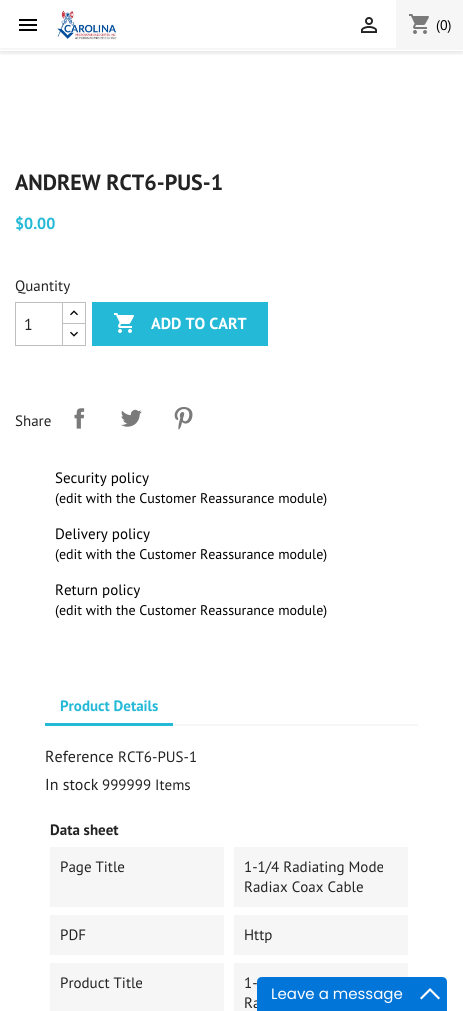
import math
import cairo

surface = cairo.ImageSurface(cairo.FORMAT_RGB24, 463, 1011)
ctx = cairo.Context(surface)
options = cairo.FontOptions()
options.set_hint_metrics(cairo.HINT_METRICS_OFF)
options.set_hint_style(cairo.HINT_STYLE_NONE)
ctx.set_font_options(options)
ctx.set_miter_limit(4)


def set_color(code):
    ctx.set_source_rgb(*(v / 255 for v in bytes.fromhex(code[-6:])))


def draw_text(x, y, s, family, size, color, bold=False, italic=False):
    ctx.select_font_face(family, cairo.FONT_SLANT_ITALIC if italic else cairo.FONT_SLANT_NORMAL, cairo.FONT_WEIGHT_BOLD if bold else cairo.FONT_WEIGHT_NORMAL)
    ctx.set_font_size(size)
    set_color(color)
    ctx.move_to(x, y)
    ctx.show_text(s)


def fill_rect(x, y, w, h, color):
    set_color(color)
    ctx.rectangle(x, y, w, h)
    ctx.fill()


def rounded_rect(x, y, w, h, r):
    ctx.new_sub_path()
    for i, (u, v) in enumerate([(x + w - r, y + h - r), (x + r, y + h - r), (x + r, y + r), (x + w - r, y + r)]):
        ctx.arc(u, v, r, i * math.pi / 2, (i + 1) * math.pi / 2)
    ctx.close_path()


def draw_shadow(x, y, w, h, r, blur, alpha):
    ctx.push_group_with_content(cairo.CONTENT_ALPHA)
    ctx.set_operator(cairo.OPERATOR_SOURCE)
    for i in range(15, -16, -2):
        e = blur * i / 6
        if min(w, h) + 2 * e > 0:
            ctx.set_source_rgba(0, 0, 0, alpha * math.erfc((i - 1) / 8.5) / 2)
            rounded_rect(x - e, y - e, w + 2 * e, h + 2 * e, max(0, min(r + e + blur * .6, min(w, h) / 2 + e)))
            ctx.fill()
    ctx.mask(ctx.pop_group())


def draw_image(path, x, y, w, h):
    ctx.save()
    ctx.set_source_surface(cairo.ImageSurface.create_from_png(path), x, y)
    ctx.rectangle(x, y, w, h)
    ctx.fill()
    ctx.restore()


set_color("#ffffff")
ctx.paint()
ctx.save()
ctx.rectangle(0, 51, 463, 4)
ctx.clip()
set_color("#000000")
draw_shadow(0, 2, 463, 51, 0, 2.5, 0.11)
ctx.restore()
fill_rect(0, 48, 463, 2, "#f6f6f6")
draw_image("assets/img1.png", 19, 19, 18, 12)
draw_image("assets/img2.png", 57, 10, 60, 30)
draw_image("assets/img3.png", 361, 17, 16, 16)
fill_rect(396, 0, 67, 48, "#f6f6f6")
draw_image("assets/img4.png", 409, 14, 20, 20)
draw_text(436, 30, "(0)", "PT Sans", 14, "#000000")
draw_text(15, 190, "ANDREW RCT6-PUS-1", "PT Sans", 22, "#232323", bold=True)
draw_text(15, 229, "$0.00", "PT Sans", 16, "#24b9d7", bold=True)
draw_text(15, 291, "Quantity", "PT Sans", 15, "#232323")
ctx.rectangle(62.5, 302.5, 23, 22)
set_color("#bfbfbf")
ctx.set_line_width(1)
ctx.stroke()
fill_rect(63, 324, 22, 1, "#ffffff")
ctx.rectangle(62.5, 323.5, 23, 22)
set_color("#bfbfbf")
ctx.stroke()
ctx.rectangle(15.5, 302.5, 47, 43)
ctx.stroke()
draw_text(24, 330, "1", "PT Sans", 16, "#232323")
draw_image("assets/img5.png", 70, 310, 8, 6)
draw_image("assets/img6.png", 70, 331, 8, 6)
fill_rect(92, 302, 176, 44, "#24b9d7")
draw_image("assets/img7.png", 114, 313, 20, 20)
draw_text(151, 329, "ADD TO CART", "PT Sans", 16, "#ffffff", bold=True)
draw_text(15, 426, "Share", "PT Sans", 15, "#232323")
draw_image("assets/img8.png", 74, 408, 11, 21)
draw_image("assets/img9.png", 121, 409, 21, 18)
draw_image("assets/img10.png", 174, 407, 19, 23)
draw_text(55, 483, "Security policy", "PT Sans", 15, "#000000")
draw_text(55, 503, "(edit with the Customer Reassurance module)", "PT Sans", 14, "#000000")
draw_text(55, 539, "Delivery policy", "PT Sans", 15, "#000000")
draw_text(55, 559, "(edit with the Customer Reassurance module)", "PT Sans", 14, "#000000")
draw_text(55, 595, "Return policy", "PT Sans", 15, "#000000")
draw_text(55, 615, "(edit with the Customer Reassurance module)", "PT Sans", 14, "#000000")
fill_rect(173, 724, 245, 2, "#f6f6f6")
fill_rect(45, 723, 128, 3, "#24b9d7")
draw_text(60, 711, "Product Details", "PT Sans", 15, "#24b9d7", bold=True)
draw_text(45, 762, "Reference", "PT Sans", 16, "#232323")
draw_text(118, 762, "RCT6-PUS-1", "PT Sans", 15, "#232323")
draw_text(45, 790, "In stock", "PT Sans", 16, "#232323")
draw_text(102, 790, "999999 Items", "PT Sans", 15, "#232323")
draw_text(50, 835, "Data sheet", "PT Sans", 15, "#232323", bold=True)
fill_rect(50, 847, 174, 60, "#f6f6f6")
draw_text(60, 872, "Page Title", "PT Sans", 15, "#232323")
fill_rect(234, 847, 174, 60, "#f6f6f6")
draw_text(244, 872, "1-1/4 Radiating Mode", "PT Sans", 15, "#232323")
draw_text(244, 892, "Radiax Coax Cable", "PT Sans", 15, "#232323")
fill_rect(50, 915, 174, 40, "#f6f6f6")
draw_text(60, 940, "PDF", "PT Sans", 15, "#232323")
fill_rect(234, 915, 174, 40, "#f6f6f6")
draw_text(244, 940, "Http", "PT Sans", 15, "#232323")
fill_rect(50, 963, 174, 48, "#f6f6f6")
draw_text(60, 988, "Product Title", "PT Sans", 15, "#232323")
fill_rect(234, 963, 174, 48, "#f6f6f6")
draw_text(244, 988, "1-", "PT Sans", 15, "#232323")
draw_text(244, 1008, "Ra", "PT Sans", 15, "#232323")
set_color("#0275d8")
ctx.new_path()
ctx.move_to(262, 977)
ctx.line_to(442, 977)
ctx.curve_to(445, 977, 447, 979, 447, 982)
ctx.line_to(447, 1011)
ctx.line_to(257, 1011)
ctx.line_to(257, 982)
ctx.curve_to(257, 979, 259, 977, 262, 977)
ctx.close_path()
ctx.fill()
draw_text(271, 999, "Leave a message", "Poppins", 15, "#ffffff")
ctx.new_path()
ctx.move_to(430, 988)
ctx.line_to(440, 998)
ctx.line_to(438.5, 999.5)
ctx.line_to(430, 991)
ctx.line_to(421.5, 999.5)
ctx.line_to(420, 998)
ctx.close_path()
ctx.fill()
surface.write_to_png("output.png")
